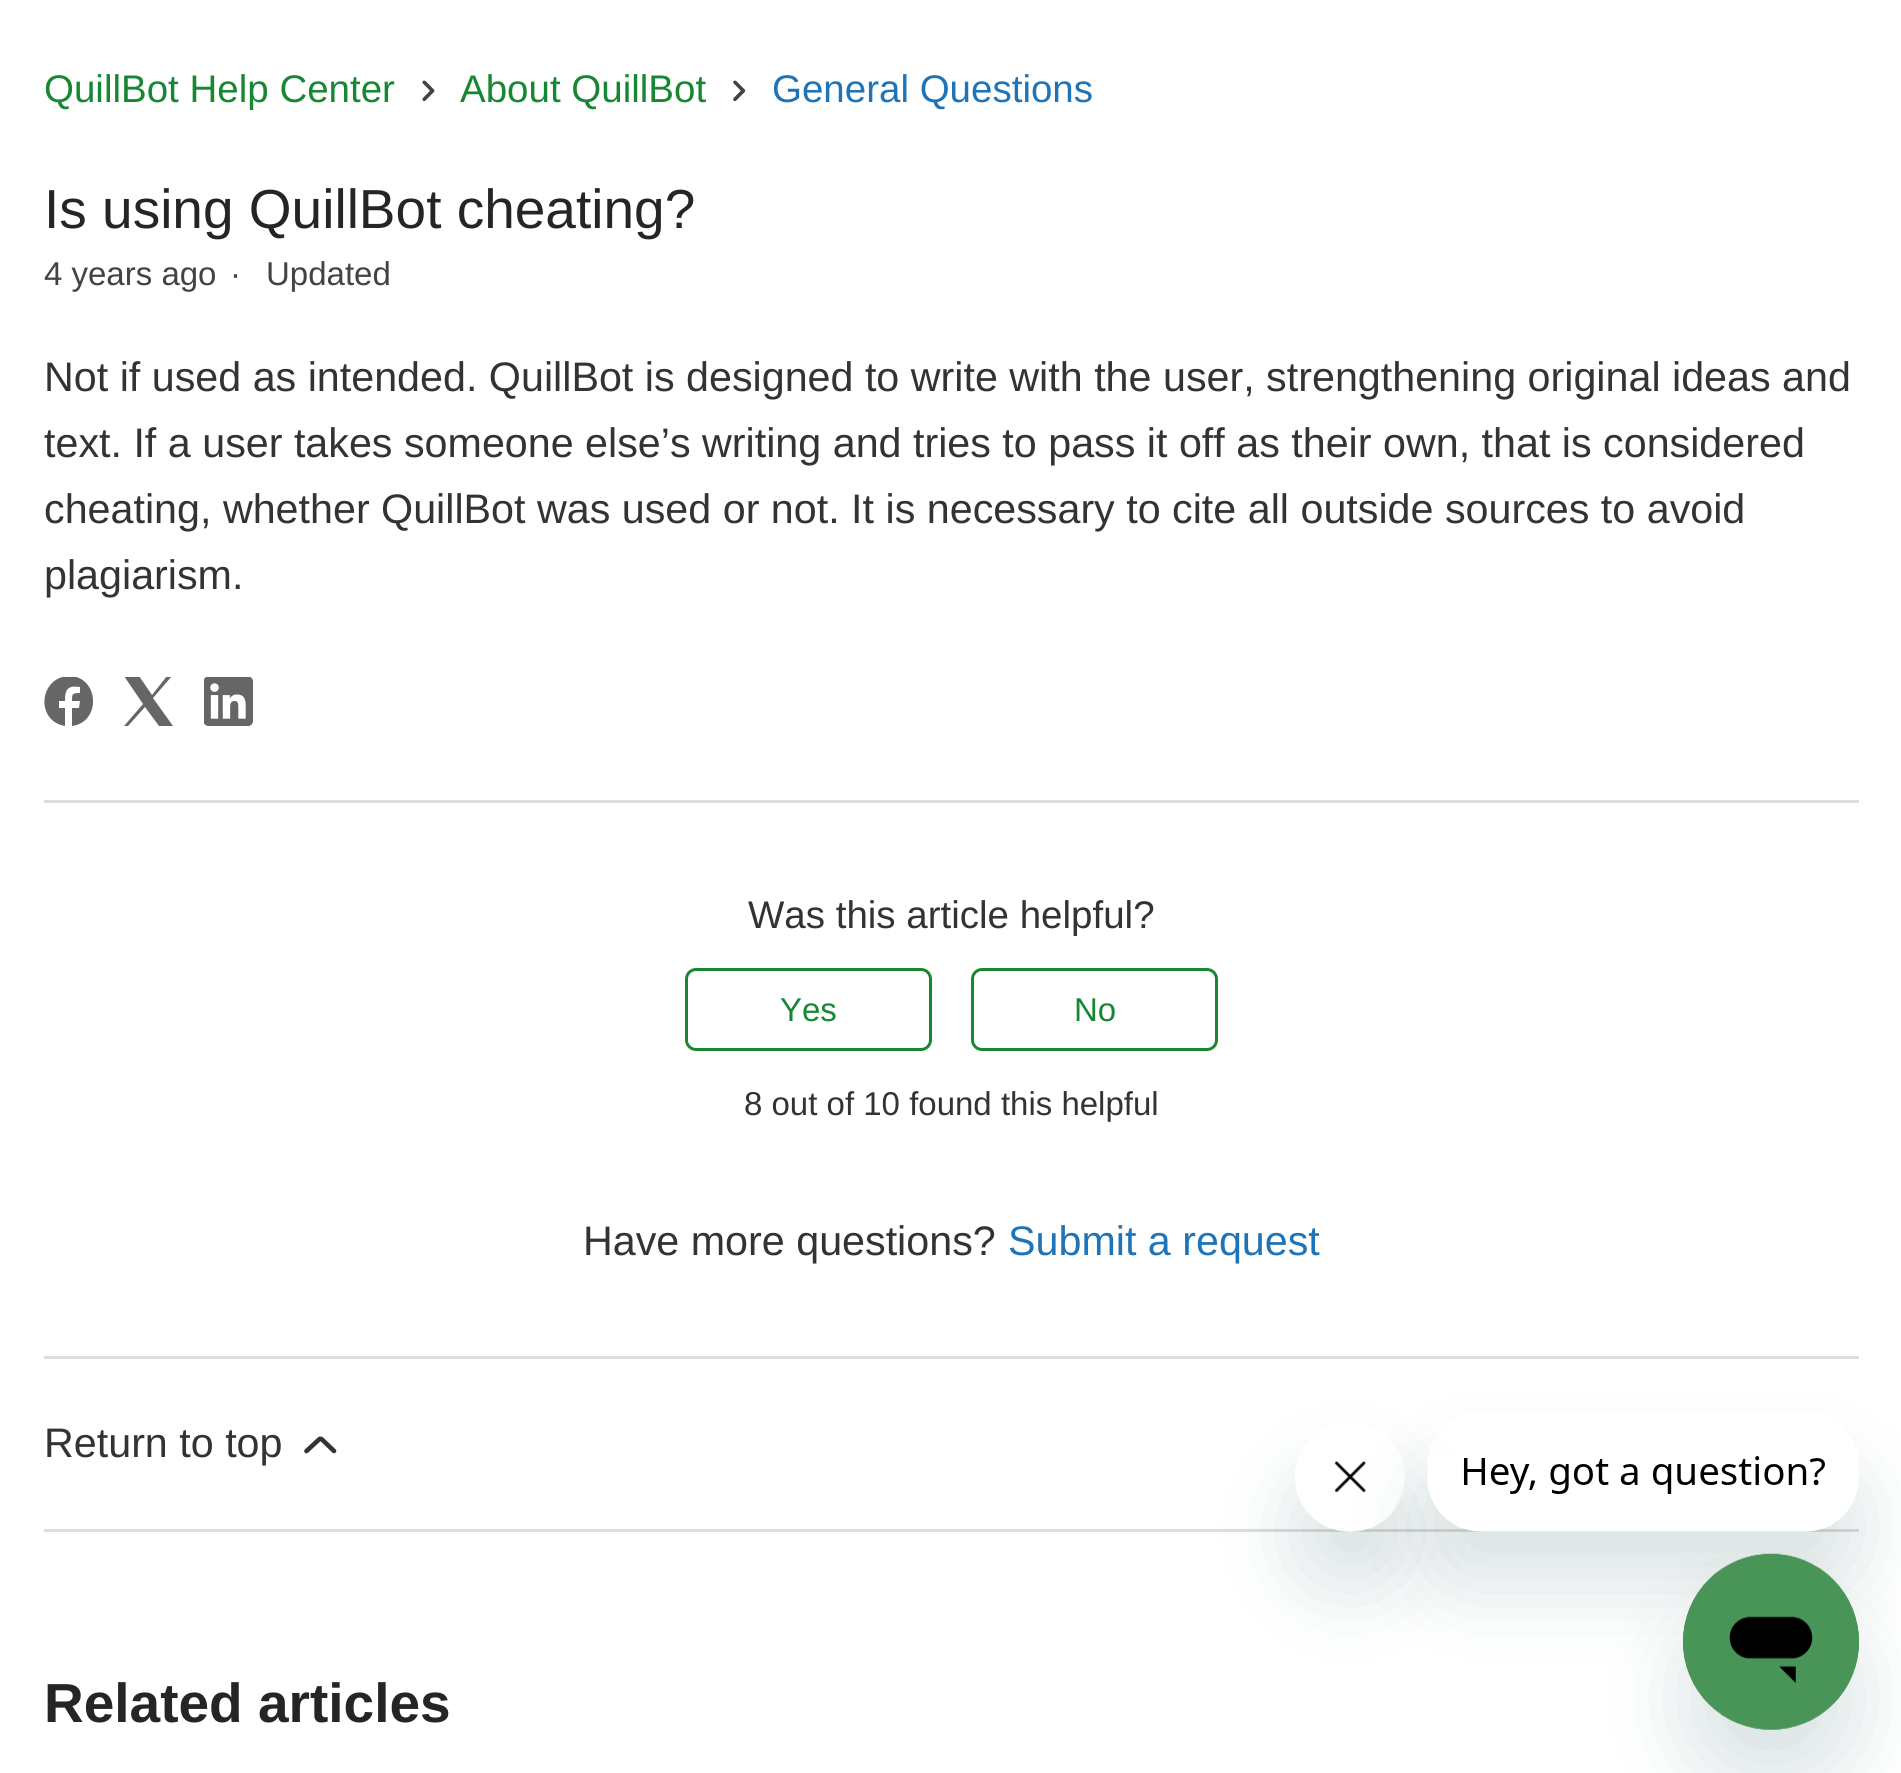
import math
import cairo

surface = cairo.ImageSurface(cairo.FORMAT_RGB24, 1901, 1773)
ctx = cairo.Context(surface)
options = cairo.FontOptions()
options.set_hint_metrics(cairo.HINT_METRICS_OFF)
options.set_hint_style(cairo.HINT_STYLE_NONE)
ctx.set_font_options(options)
ctx.set_miter_limit(4)


def set_color(code):
    ctx.set_source_rgb(*(v / 255 for v in bytes.fromhex(code[-6:])))


def draw_text(x, y, s, family, size, color, bold=False, italic=False):
    ctx.select_font_face(family, cairo.FONT_SLANT_ITALIC if italic else cairo.FONT_SLANT_NORMAL, cairo.FONT_WEIGHT_BOLD if bold else cairo.FONT_WEIGHT_NORMAL)
    ctx.set_font_size(size)
    set_color(color)
    ctx.move_to(x, y)
    ctx.show_text(s)


def fill_rect(x, y, w, h, color):
    set_color(color)
    ctx.rectangle(x, y, w, h)
    ctx.fill()


def rounded_rect(x, y, w, h, r):
    ctx.new_sub_path()
    for i, (u, v) in enumerate([(x + w - r, y + h - r), (x + r, y + h - r), (x + r, y + r), (x + w - r, y + r)]):
        ctx.arc(u, v, r, i * math.pi / 2, (i + 1) * math.pi / 2)
    ctx.close_path()


def draw_shadow(x, y, w, h, r, blur, alpha):
    ctx.push_group_with_content(cairo.CONTENT_ALPHA)
    ctx.set_operator(cairo.OPERATOR_SOURCE)
    for i in range(15, -16, -2):
        e = blur * i / 6
        if min(w, h) + 2 * e > 0:
            ctx.set_source_rgba(0, 0, 0, alpha * math.erfc((i - 1) / 8.5) / 2)
            rounded_rect(x - e, y - e, w + 2 * e, h + 2 * e, max(0, min(r + e + blur * .6, min(w, h) / 2 + e)))
            ctx.fill()
    ctx.mask(ctx.pop_group())


def draw_image(path, x, y, w, h):
    ctx.save()
    ctx.set_source_surface(cairo.ImageSurface.create_from_png(path), x, y)
    ctx.rectangle(x, y, w, h)
    ctx.fill()
    ctx.restore()


set_color("#ffffff")
ctx.paint()
draw_text(44, 102, "QuillBot Help Center", "Liberation Sans", 38.5, "#178733")
draw_image("assets/img1.png", 422, 80, 13, 21)
draw_text(460, 102, "About QuillBot", "Liberation Sans", 38.5, "#178733")
draw_image("assets/img2.png", 733, 80, 13, 21)
draw_text(772, 102, "General Questions", "Liberation Sans", 38.5, "#1f73b7")
draw_text(44, 228, "Is using QuillBot cheating?", "Liberation Sans", 55, "#252525")
draw_text(44, 285, "4 years ago", "Liberation Sans", 33, "#434343")
draw_text(230, 285, "·", "Liberation Sans", 33, "#434343")
draw_text(266, 285, "Updated", "Liberation Sans", 33, "#434343")
draw_text(44, 391, "Not if used as intended. QuillBot is designed to write with the user, strengthening original ideas and", "Liberation Sans", 41.25, "#333333")
draw_text(44, 457, "text. If a user takes someone else’s writing and tries to pass it off as their own, that is considered", "Liberation Sans", 41.25, "#333333")
draw_text(44, 523, "cheating, whether QuillBot was used or not. It is necessary to cite all outside sources to avoid", "Liberation Sans", 41.25, "#333333")
draw_text(44, 589, "plagiarism.", "Liberation Sans", 41.25, "#333333")
ctx.save()
ctx.rectangle(44, 677, 50, 49)
ctx.clip()
set_color("#666666")
ctx.new_path()
ctx.move_to(69, 676)
ctx.curve_to(99, 676, 102, 722, 72, 726)
ctx.line_to(72, 708)
ctx.line_to(79, 708)
ctx.line_to(80, 701)
ctx.line_to(72, 701)
ctx.curve_to(72, 694, 72, 693, 80, 693)
ctx.line_to(80, 687)
ctx.curve_to(67, 685, 65, 690, 65, 701)
ctx.line_to(59, 701)
ctx.line_to(59, 708)
ctx.line_to(65, 708)
ctx.line_to(65, 726)
ctx.curve_to(35, 721, 39, 677, 69, 676)
ctx.close_path()
ctx.fill()
ctx.restore()
ctx.save()
ctx.rectangle(124, 677, 49, 49)
ctx.clip()
set_color("#666666")
ctx.new_path()
ctx.move_to(124, 676)
ctx.line_to(139, 676)
ctx.line_to(152, 695)
ctx.line_to(167, 676)
ctx.line_to(172, 676)
ctx.line_to(153, 698)
ctx.line_to(173, 726)
ctx.line_to(159, 726)
ctx.line_to(145, 707)
ctx.line_to(128, 726)
ctx.line_to(124, 726)
ctx.line_to(143, 704)
ctx.close_path()
ctx.fill()
ctx.restore()
draw_image("assets/img3.png", 204, 677, 49, 49)
fill_rect(44, 800, 1815, 3, "#dddddd")
draw_text(748, 928, "Was this article helpful?", "Liberation Sans", 38.5, "#333333")
rounded_rect(686.5, 969.5, 244, 80, 9.5)
set_color("#178733")
ctx.set_line_width(3)
ctx.stroke()
draw_text(780, 1021, "Yes", "Liberation Sans", 33, "#178733")
rounded_rect(972.5, 969.5, 244, 80, 9.5)
ctx.stroke()
draw_text(1074, 1021, "No", "Liberation Sans", 33, "#178733")
draw_text(744, 1115, "8 out of 10 found this helpful", "Liberation Sans", 33, "#333333")
draw_text(583, 1255, "Have more questions?", "Liberation Sans", 41.25, "#333333")
draw_text(1008, 1255, "Submit a request", "Liberation Sans", 41.25, "#1f73b7")
fill_rect(44, 1356, 1815, 3, "#dddddd")
draw_text(44, 1457, "Return to top", "Liberation Sans", 41.25, "#333333")
ctx.new_path()
ctx.move_to(334, 1451)
ctx.line_to(322, 1439.5)
ctx.curve_to(321, 1438.5, 319.5, 1438.5, 319, 1439.5)
ctx.line_to(306.5, 1451)
ctx.set_line_width(4.6)
ctx.set_line_cap(cairo.LINE_CAP_ROUND)
ctx.stroke()
fill_rect(44, 1529, 1815, 3, "#dddddd")
draw_text(44, 1722, "Related articles", "Liberation Sans", 55, "#252525", bold=True)
ctx.save()
ctx.set_fill_rule(cairo.FILL_RULE_EVEN_ODD)
ctx.new_path()
ctx.move_to(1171, 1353)
ctx.line_to(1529, 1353)
ctx.line_to(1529, 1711)
ctx.line_to(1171, 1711)
ctx.close_path()
ctx.move_to(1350, 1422)
ctx.curve_to(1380.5, 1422, 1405, 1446.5, 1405, 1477)
ctx.curve_to(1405, 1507.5, 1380.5, 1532, 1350, 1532)
ctx.curve_to(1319.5, 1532, 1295, 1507.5, 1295, 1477)
ctx.curve_to(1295, 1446.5, 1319.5, 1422, 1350, 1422)
ctx.close_path()
ctx.clip()
set_color("#17494d")
draw_shadow(1295, 1477, 110, 110, 55, 41, 0.15)
ctx.restore()
draw_image("assets/img5.png", 1314, 1460, 70, 72)
ctx.save()
ctx.set_fill_rule(cairo.FILL_RULE_EVEN_ODD)
ctx.new_path()
ctx.move_to(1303, 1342)
ctx.line_to(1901, 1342)
ctx.line_to(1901, 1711)
ctx.line_to(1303, 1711)
ctx.close_path()
ctx.move_to(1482, 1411)
ctx.line_to(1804, 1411)
ctx.curve_to(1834.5, 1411, 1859, 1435.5, 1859, 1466)
ctx.line_to(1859, 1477)
ctx.curve_to(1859, 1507.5, 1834.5, 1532, 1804, 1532)
ctx.line_to(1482, 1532)
ctx.curve_to(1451.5, 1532, 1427, 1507.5, 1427, 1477)
ctx.line_to(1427, 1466)
ctx.curve_to(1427, 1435.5, 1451.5, 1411, 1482, 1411)
ctx.close_path()
ctx.clip()
set_color("#17494d")
draw_shadow(1427, 1466, 432, 121, 55, 41, 0.15)
ctx.restore()
draw_image("assets/img4.png", 1428, 1456, 397, 76)
set_color("#17494d")
draw_shadow(1683, 1609, 176, 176, 88, 41, 0.15)
draw_image("assets/img6.png", 1683, 1553, 176, 177)
surface.write_to_png("output.png")
